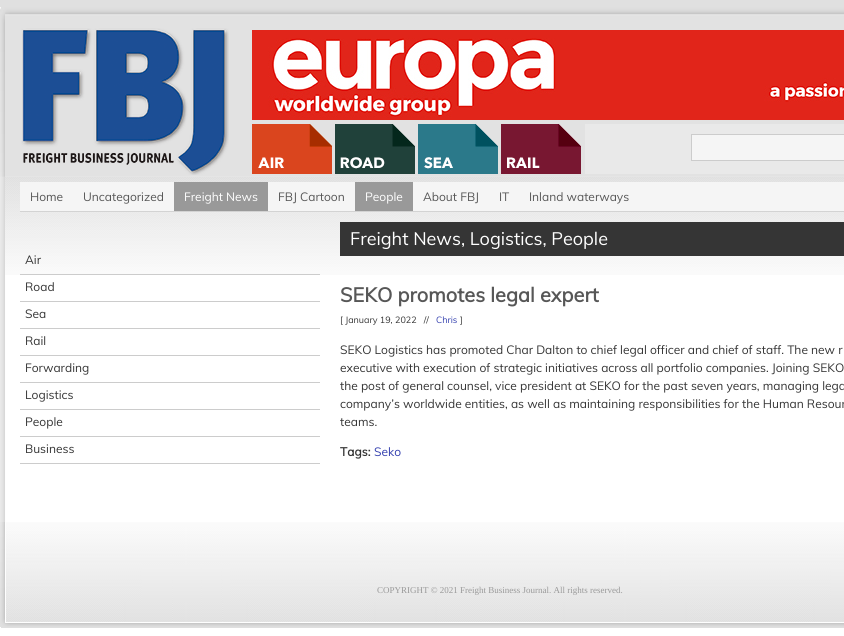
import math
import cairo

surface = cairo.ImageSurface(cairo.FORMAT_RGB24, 844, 636)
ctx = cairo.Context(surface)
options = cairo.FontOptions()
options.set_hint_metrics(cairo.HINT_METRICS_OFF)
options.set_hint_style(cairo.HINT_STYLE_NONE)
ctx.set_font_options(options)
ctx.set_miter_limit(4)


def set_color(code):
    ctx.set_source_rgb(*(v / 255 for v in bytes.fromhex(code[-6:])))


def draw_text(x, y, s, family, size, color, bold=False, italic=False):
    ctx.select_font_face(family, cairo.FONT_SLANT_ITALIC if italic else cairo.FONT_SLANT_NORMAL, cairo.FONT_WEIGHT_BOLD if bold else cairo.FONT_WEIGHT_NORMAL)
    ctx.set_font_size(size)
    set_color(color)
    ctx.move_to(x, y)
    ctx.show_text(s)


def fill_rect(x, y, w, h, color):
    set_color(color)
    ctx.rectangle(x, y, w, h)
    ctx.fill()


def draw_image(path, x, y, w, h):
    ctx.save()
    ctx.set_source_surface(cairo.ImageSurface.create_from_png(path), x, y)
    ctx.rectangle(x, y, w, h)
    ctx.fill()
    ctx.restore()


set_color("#ffffff")
ctx.paint()
draw_image("assets/img1.png", 0, 0, 844, 177)
draw_image("assets/img2.png", 0, 7, 844, 170)
draw_image("assets/img3.png", 21, 28, 208, 147)
draw_image("assets/img4.png", 252, 30, 592, 90)
draw_image("assets/img5.png", 252, 124, 80, 50)
draw_image("assets/img6.png", 335, 124, 80, 50)
draw_image("assets/img7.png", 418, 124, 80, 50)
draw_image("assets/img8.png", 501, 124, 80, 50)
fill_rect(585, 124, 259, 50, "#e9e9e9")
set_color("#f5f5f5")
ctx.rectangle(691.5, 134.5, 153, 26)
ctx.fill_preserve()
set_color("#cccccc")
ctx.set_line_width(1)
ctx.stroke()
draw_image("assets/img9.png", 0, 177, 844, 345)
draw_image("assets/img10.png", 5, 177, 839, 98)
fill_rect(20, 182, 824, 29, "#f5f5f5")
fill_rect(20, 211, 824, 1, "#d3d3d3")
draw_text(30, 201, "Home", "Muli", 12, "#575757")
draw_text(83, 201, "Uncategorized", "Muli", 12, "#575757")
fill_rect(174, 182, 94, 29, "#999999")
draw_text(184, 201, "Freight News", "Muli", 12, "#ffffff")
draw_text(278, 201, "FBJ Cartoon", "Muli", 12, "#575757")
fill_rect(355, 182, 58, 29, "#999999")
draw_text(365, 201, "People", "Muli", 12, "#ffffff")
draw_text(423, 201, "About FBJ", "Muli", 12, "#575757")
draw_text(499, 201, "IT", "Muli", 12, "#575757")
draw_text(529, 201, "Inland waterways", "Muli", 12, "#575757")
fill_rect(20, 274, 300, 1, "#cccccc")
draw_text(25, 264, "Air", "Muli", 12, "#353535")
fill_rect(20, 301, 300, 1, "#cccccc")
draw_text(25, 291, "Road", "Muli", 12, "#353535")
fill_rect(20, 328, 300, 1, "#cccccc")
draw_text(25, 318, "Sea", "Muli", 12, "#353535")
fill_rect(20, 355, 300, 1, "#cccccc")
draw_text(25, 345, "Rail", "Muli", 12, "#353535")
fill_rect(20, 382, 300, 1, "#cccccc")
draw_text(25, 372, "Forwarding", "Muli", 12, "#353535")
fill_rect(20, 409, 300, 1, "#cccccc")
draw_text(25, 399, "Logistics", "Muli", 12, "#353535")
fill_rect(20, 436, 300, 1, "#cccccc")
draw_text(25, 426, "People", "Muli", 12, "#353535")
fill_rect(20, 463, 300, 1, "#cccccc")
draw_text(25, 453, "Business", "Muli", 12, "#353535")
fill_rect(340, 222, 504, 34, "#353535")
draw_text(350, 245, "Freight News, Logistics, People", "Muli", 18, "#ffffff")
draw_text(340, 302, "SEKO promotes legal expert", "Muli", 20, "#575757", bold=True)
draw_text(340, 323, "[ January 19, 2022   //", "Muli", 9, "#353535")
draw_text(436, 323, "Chris", "Muli", 9, "#323eae")
draw_text(460, 323, "]", "Muli", 9, "#353535")
draw_text(340, 354, "SEKO Logistics has promoted Char Dalton to chief legal officer and chief of staff. The new r", "Muli", 12, "#353535")
draw_text(340, 372, "executive with execution of strategic initiatives across all portfolio companies. Joining SEKO", "Muli", 12, "#353535")
draw_text(340, 390, "the post of general counsel, vice president at SEKO for the past seven years, managing lega", "Muli", 12, "#353535")
draw_text(340, 408, "company’s worldwide entities, as well as maintaining responsibilities for the Human Resour", "Muli", 12, "#353535")
draw_text(340, 426, "teams.", "Muli", 12, "#353535")
draw_text(340, 456, "Tags:", "Muli", 12, "#353535", bold=True)
draw_text(374, 456, "Seko", "Muli", 12, "#323eae")
draw_image("assets/img11.png", 0, 522, 844, 106)
draw_text(377, 593, "COPYRIGHT © 2021 Freight Business Journal. All rights reserved.", "Liberation Serif", 9, "#999999")
surface.write_to_png("output.png")
